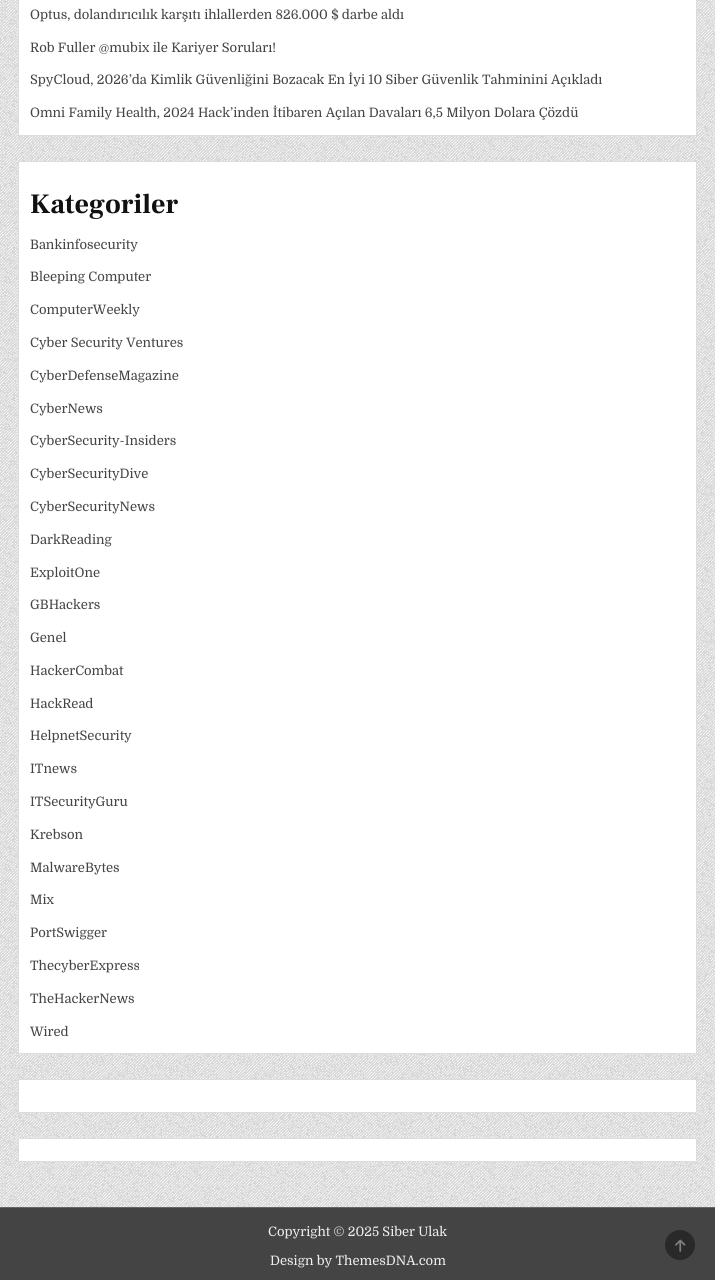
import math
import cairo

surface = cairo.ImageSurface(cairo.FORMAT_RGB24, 715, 1280)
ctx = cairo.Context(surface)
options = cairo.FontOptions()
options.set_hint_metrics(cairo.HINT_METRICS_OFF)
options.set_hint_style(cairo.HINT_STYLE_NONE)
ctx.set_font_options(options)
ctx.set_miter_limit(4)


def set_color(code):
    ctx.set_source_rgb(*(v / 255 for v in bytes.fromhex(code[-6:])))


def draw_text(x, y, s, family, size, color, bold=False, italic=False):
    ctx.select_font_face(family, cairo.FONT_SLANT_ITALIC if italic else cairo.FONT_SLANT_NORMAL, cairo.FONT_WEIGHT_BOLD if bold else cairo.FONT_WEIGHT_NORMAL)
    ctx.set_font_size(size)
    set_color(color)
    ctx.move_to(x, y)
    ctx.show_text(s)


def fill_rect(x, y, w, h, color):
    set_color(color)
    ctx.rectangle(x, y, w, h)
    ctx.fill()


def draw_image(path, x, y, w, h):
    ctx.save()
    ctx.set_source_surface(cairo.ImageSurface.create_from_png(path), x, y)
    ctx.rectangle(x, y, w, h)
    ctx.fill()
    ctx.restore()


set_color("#ffffff")
ctx.paint()
draw_image("assets/img1.png", 0, 0, 715, 1207)
set_color("#ffffff")
ctx.rectangle(18.5, -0.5, 678, 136)
ctx.fill_preserve()
set_color("#dddddd")
ctx.set_line_width(1)
ctx.stroke()
draw_text(30, 19, "Optus, dolandırıcılık karşıtı ihlallerden 826.000 $ darbe aldı", "Domine", 13, "#444444")
draw_text(30, 52, "Rob Fuller @mubix ile Kariyer Soruları!", "Domine", 13, "#444444")
draw_text(30, 84, "SpyCloud, 2026’da Kimlik Güvenliğini Bozacak En İyi 10 Siber Güvenlik Tahminini Açıkladı", "Domine", 13, "#444444")
draw_text(30, 117, "Omni Family Health, 2024 Hack’inden İtibaren Açılan Davaları 6,5 Milyon Dolara Çözdü", "Domine", 13, "#444444")
set_color("#ffffff")
ctx.rectangle(18.5, 161.5, 678, 892)
ctx.fill_preserve()
set_color("#dddddd")
ctx.stroke()
draw_text(30, 213, "Kategoriler", "Frank Ruhl Libre", 28, "#111111", bold=True)
draw_text(30, 249, "Bankinfosecurity", "Domine", 13, "#444444")
draw_text(30, 281, "Bleeping Computer", "Domine", 13, "#444444")
draw_text(30, 314, "ComputerWeekly", "Domine", 13, "#444444")
draw_text(30, 347, "Cyber Security Ventures", "Domine", 13, "#444444")
draw_text(30, 380, "CyberDefenseMagazine", "Domine", 13, "#444444")
draw_text(30, 413, "CyberNews", "Domine", 13, "#444444")
draw_text(30, 445, "CyberSecurity-Insiders", "Domine", 13, "#444444")
draw_text(30, 478, "CyberSecurityDive", "Domine", 13, "#444444")
draw_text(30, 511, "CyberSecurityNews", "Domine", 13, "#444444")
draw_text(30, 544, "DarkReading", "Domine", 13, "#444444")
draw_text(30, 577, "ExploitOne", "Domine", 13, "#444444")
draw_text(30, 609, "GBHackers", "Domine", 13, "#444444")
draw_text(30, 642, "Genel", "Domine", 13, "#444444")
draw_text(30, 675, "HackerCombat", "Domine", 13, "#444444")
draw_text(30, 708, "HackRead", "Domine", 13, "#444444")
draw_text(30, 740, "HelpnetSecurity", "Domine", 13, "#444444")
draw_text(30, 773, "ITnews", "Domine", 13, "#444444")
draw_text(30, 806, "ITSecurityGuru", "Domine", 13, "#444444")
draw_text(30, 839, "Krebson", "Domine", 13, "#444444")
draw_text(30, 872, "MalwareBytes", "Domine", 13, "#444444")
draw_text(30, 904, "Mix", "Domine", 13, "#444444")
draw_text(30, 937, "PortSwigger", "Domine", 13, "#444444")
draw_text(30, 970, "ThecyberExpress", "Domine", 13, "#444444")
draw_text(30, 1003, "TheHackerNews", "Domine", 13, "#444444")
draw_text(30, 1036, "Wired", "Domine", 13, "#444444")
set_color("#ffffff")
ctx.rectangle(18.5, 1079.5, 678, 33)
ctx.fill_preserve()
set_color("#dddddd")
ctx.stroke()
set_color("#ffffff")
ctx.rectangle(18.5, 1138.5, 678, 23)
ctx.fill_preserve()
set_color("#dddddd")
ctx.stroke()
fill_rect(0, 1208, 715, 72, "#444444")
fill_rect(0, 1207, 715, 1, "#656565")
draw_text(268, 1236, "Copyright © 2025 Siber Ulak", "Domine", 13, "#eeeeee")
draw_text(270, 1265, "Design by ThemesDNA.com", "Domine", 13, "#eeeeee")
set_color("#292929")
ctx.new_path()
ctx.arc(680, 1245, 14.5, 0, 2 * math.pi)
ctx.fill_preserve()
ctx.stroke()
draw_image("assets/img2.png", 675, 1239, 11, 13)
surface.write_to_png("output.png")
